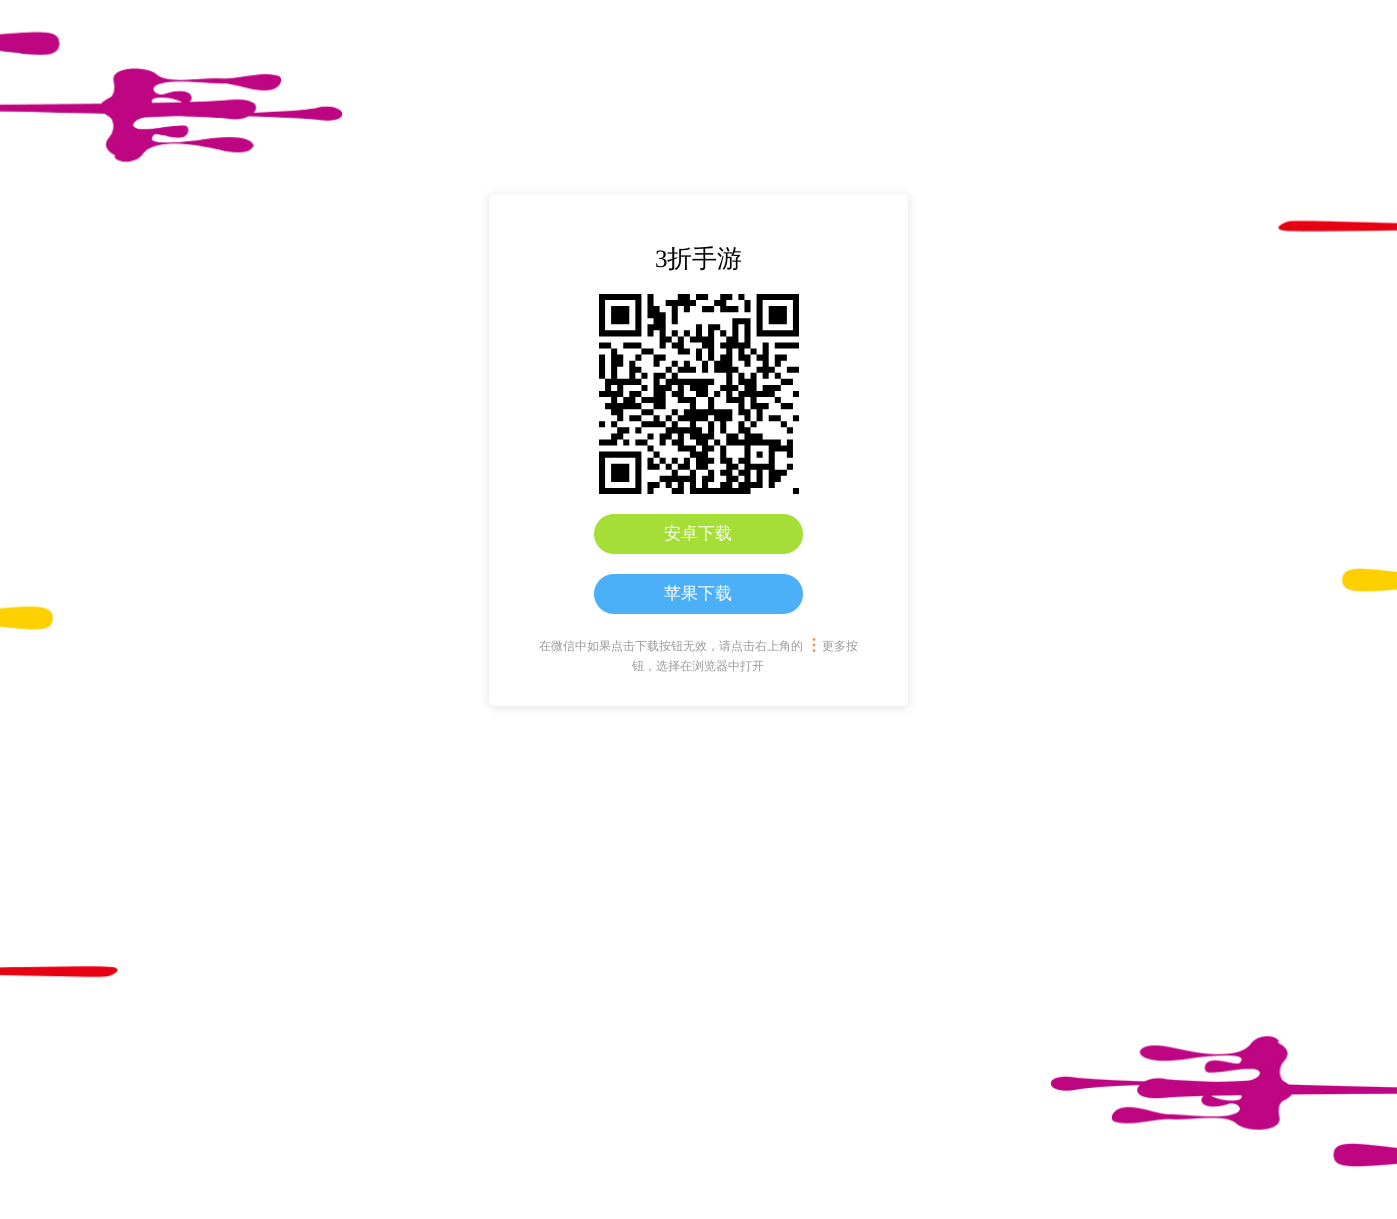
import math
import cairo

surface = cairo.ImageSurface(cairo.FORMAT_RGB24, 1397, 1219)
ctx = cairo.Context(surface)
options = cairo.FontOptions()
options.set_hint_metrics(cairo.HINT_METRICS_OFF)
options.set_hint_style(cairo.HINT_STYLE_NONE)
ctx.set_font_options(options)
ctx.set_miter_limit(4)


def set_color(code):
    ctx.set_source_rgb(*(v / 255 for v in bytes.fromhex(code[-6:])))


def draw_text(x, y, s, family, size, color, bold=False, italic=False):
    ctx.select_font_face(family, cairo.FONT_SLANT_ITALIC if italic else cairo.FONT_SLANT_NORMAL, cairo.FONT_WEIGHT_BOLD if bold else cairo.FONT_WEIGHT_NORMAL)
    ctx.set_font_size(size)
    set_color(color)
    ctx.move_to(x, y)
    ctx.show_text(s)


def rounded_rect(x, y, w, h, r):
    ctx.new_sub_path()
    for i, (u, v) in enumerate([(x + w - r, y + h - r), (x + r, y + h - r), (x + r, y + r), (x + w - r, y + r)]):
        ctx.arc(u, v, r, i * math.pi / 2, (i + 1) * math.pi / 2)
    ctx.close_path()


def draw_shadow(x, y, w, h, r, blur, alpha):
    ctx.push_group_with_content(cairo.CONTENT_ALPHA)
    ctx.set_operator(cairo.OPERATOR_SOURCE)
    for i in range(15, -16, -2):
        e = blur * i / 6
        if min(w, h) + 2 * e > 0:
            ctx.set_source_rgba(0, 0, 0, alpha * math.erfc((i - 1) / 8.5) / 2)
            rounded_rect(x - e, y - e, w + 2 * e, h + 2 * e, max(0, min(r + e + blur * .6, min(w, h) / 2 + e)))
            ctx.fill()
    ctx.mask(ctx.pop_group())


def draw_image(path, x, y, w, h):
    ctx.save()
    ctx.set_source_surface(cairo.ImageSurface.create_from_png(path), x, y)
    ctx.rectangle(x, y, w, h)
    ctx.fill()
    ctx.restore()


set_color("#ffffff")
ctx.paint()
draw_image("assets/img1.png", 0, 31, 1397, 1137)
set_color("#e2e2e2")
draw_shadow(489, 195, 419, 512, 5, 5, 1)
set_color("#ffffff")
rounded_rect(489, 194, 419, 512, 5)
ctx.fill()
draw_text(655, 267, "3", "Liberation Serif", 25, "#000000")
draw_text(667, 267, "折手游", "WenQuanYi Zen Hei Medium", 25, "#000000")
draw_image("assets/img2.png", 599, 294, 200, 200)
set_color("#a5de37")
rounded_rect(594, 514, 209, 40, 20)
ctx.fill()
draw_text(664, 539, "安卓下载", "WenQuanYi Zen Hei Medium", 17, "#ffffff")
set_color("#4cb0f9")
rounded_rect(594, 574, 209, 40, 20)
ctx.fill()
draw_text(664, 599, "苹果下载", "WenQuanYi Zen Hei Medium", 17, "#ffffff")
draw_text(539, 650, "在微信中如果点击下载按钮无效，请点击右上角的", "WenQuanYi Zen Hei Medium", 12, "#999999")
draw_image("assets/img3.png", 812, 638, 4, 14)
draw_text(822, 650, "更多按", "WenQuanYi Zen Hei Medium", 12, "#999999")
draw_text(632, 670, "钮，选择在浏览器中打开", "WenQuanYi Zen Hei Medium", 12, "#999999")
surface.write_to_png("output.png")
